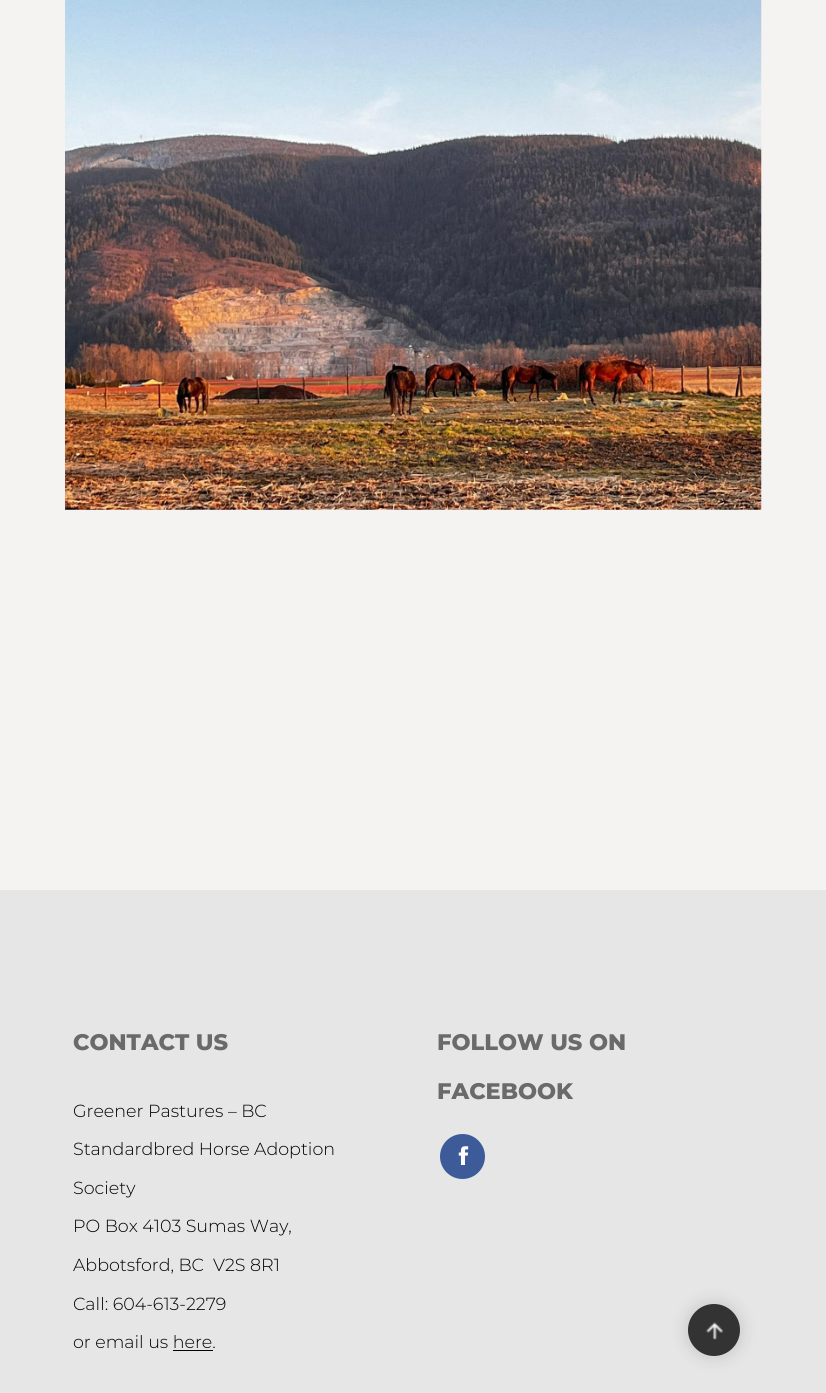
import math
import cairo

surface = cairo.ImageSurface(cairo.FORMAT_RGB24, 826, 1393)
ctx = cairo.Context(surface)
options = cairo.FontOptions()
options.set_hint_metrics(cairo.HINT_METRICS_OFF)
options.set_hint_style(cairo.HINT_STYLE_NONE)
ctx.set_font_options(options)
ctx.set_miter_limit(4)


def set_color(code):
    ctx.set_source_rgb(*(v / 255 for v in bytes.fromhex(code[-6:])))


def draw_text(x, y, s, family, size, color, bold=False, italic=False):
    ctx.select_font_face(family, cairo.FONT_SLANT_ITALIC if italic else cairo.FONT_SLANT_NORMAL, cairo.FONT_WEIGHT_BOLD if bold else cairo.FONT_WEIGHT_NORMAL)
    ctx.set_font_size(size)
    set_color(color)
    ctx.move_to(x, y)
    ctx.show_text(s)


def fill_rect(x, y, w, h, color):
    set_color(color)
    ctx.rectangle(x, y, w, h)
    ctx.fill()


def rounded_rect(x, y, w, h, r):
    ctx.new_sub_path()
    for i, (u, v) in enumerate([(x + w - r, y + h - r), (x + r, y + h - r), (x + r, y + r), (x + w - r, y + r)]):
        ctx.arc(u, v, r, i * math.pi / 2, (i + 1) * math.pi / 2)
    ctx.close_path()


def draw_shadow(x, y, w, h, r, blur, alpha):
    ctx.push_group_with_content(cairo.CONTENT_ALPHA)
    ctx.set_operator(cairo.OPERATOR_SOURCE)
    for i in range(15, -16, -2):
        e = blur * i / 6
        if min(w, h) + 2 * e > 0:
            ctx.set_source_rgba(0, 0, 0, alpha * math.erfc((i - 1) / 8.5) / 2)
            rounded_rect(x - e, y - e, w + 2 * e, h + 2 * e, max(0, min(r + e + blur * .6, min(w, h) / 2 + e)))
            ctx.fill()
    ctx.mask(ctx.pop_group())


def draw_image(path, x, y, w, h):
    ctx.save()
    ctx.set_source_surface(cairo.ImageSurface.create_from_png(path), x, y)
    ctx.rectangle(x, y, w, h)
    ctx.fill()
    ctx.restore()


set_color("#f5f2f2")
ctx.paint()
draw_image("assets/img1.png", 65, 0, 697, 510)
fill_rect(0, 890, 826, 503, "#e6e6e6")
draw_text(73, 1050, "CONTACT US", "Montserrat ExtraBold", 22.5, "#6a6a6a")
draw_text(73, 1117, "Greener Pastures – BC", "Montserrat Light", 17.5, "#000000")
draw_text(73, 1155, "Standardbred Horse Adoption", "Montserrat Light", 17.5, "#000000")
draw_text(73, 1194, "Society", "Montserrat Light", 17.5, "#000000")
draw_text(73, 1232, "PO Box 4103 Sumas Way,", "Montserrat Light", 17.5, "#000000")
draw_text(73, 1271, "Abbotsford, BC  V2S 8R1", "Montserrat Light", 17.5, "#000000")
draw_text(73, 1310, "Call: 604-613-2279", "Montserrat Light", 17.5, "#000000")
draw_text(73, 1348, "or email us here.", "Montserrat Light", 17.5, "#000000")
fill_rect(173, 1350, 40, 1, "#000000")
draw_text(437, 1050, "FOLLOW US ON", "Montserrat ExtraBold", 22.5, "#6a6a6a")
draw_text(437, 1099, "FACEBOOK", "Montserrat ExtraBold", 22.5, "#6a6a6a")
set_color("#3d5b99")
ctx.new_path()
ctx.arc(462.5, 1156.5, 22.5, 0, 2 * math.pi)
ctx.fill()
draw_image("assets/img2.png", 458, 1146, 11, 19)
set_color("#000000")
draw_shadow(684, 1300, 60, 60, 30, 7, 0.1)
set_color("#333333")
ctx.arc(714, 1330, 26, 0, 2 * math.pi)
ctx.fill()
draw_image("assets/img3.png", 705, 1322, 19, 18)
surface.write_to_png("output.png")
